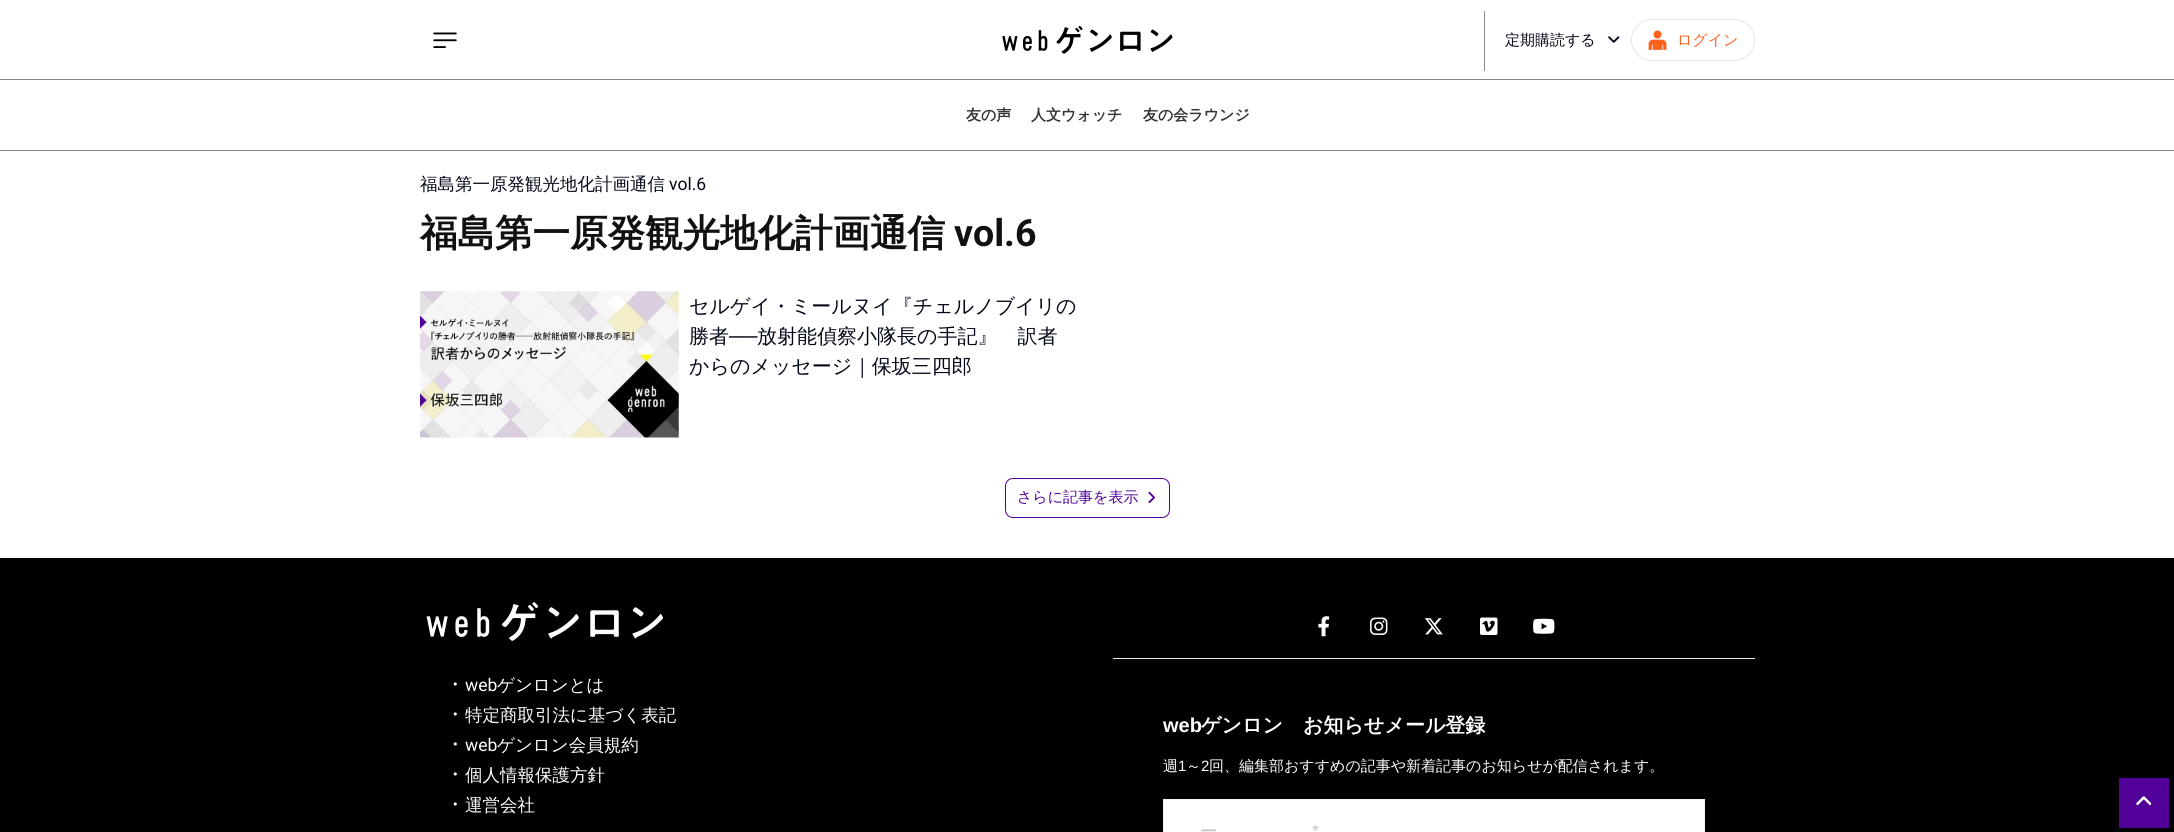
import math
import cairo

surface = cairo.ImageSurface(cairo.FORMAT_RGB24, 2174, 832)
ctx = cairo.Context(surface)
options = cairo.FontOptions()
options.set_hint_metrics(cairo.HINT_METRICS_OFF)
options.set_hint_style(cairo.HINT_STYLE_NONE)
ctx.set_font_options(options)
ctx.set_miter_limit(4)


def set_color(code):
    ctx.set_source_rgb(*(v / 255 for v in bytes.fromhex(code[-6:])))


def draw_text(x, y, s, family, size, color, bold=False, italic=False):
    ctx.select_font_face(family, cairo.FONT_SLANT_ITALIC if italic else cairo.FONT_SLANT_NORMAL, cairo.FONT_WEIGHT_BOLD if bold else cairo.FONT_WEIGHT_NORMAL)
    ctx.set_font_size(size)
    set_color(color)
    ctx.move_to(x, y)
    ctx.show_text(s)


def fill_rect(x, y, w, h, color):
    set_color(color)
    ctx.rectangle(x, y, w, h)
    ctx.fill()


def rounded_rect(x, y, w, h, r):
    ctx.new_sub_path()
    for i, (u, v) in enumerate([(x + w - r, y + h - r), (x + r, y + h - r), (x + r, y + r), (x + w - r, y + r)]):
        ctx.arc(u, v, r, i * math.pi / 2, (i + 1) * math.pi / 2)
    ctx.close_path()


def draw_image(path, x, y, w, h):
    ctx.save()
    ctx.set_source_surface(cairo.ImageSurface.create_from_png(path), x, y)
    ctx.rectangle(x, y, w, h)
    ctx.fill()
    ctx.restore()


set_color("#ffffff")
ctx.paint()
fill_rect(0, 150, 2174, 1, "#888888")
draw_image("assets/img1.png", 433, 32, 24, 16)
draw_image("assets/img2.png", 1002, 25, 171, 29)
fill_rect(1484, 11, 1, 60, "#888888")
draw_text(1505, 45, "定期購読する", "WenQuanYi Zen Hei Medium", 15, "#020817")
draw_image("assets/img3.png", 1608, 36, 12, 7)
rounded_rect(1631.5, 19.5, 123, 41, 20.5)
set_color("#e2e8f0")
ctx.set_line_width(1)
ctx.stroke()
draw_image("assets/img4.png", 1648, 30, 19, 20)
draw_text(1677, 45, "ログイン", "WenQuanYi Zen Hei Medium", 15, "#fb601d")
fill_rect(0, 79, 2174, 1, "#888888")
draw_text(966, 120, "友の声", "WenQuanYi Zen Hei", 15, "#333333", bold=True)
draw_text(1031, 120, "人文ウォッチ", "WenQuanYi Zen Hei", 15, "#333333", bold=True)
draw_text(1143, 120, "友の会ラウンジ", "WenQuanYi Zen Hei", 15, "#333333", bold=True)
draw_text(420, 190, "福島第一原発観光地化計画通信", "WenQuanYi Zen Hei Medium", 17.5, "#020817")
draw_text(669, 190, "vol.6", "Roboto", 17.5, "#020817")
draw_text(420, 246, "福島第一原発観光地化計画通信", "WenQuanYi Zen Hei", 37.5, "#111111", bold=True)
draw_text(954, 246, "vol.6", "Roboto", 37.5, "#111111", bold=True)
draw_image("assets/img5.png", 420, 291, 259, 147)
draw_text(689, 313, "セルゲイ・ミールヌイ『チェルノブイリの", "WenQuanYi Zen Hei Medium", 20, "#020817")
draw_text(689, 343, "勝者", "WenQuanYi Zen Hei Medium", 20, "#020817")
draw_text(729, 343, "──", "Liberation Sans", 20, "#020817")
draw_text(757, 343, "放射能偵察小隊長の手記』　訳者", "WenQuanYi Zen Hei Medium", 20, "#020817")
draw_text(689, 373, "からのメッセージ｜保坂三四郎", "WenQuanYi Zen Hei Medium", 20, "#020817")
rounded_rect(1005.5, 478.5, 164, 39, 7.5)
set_color("#510099")
ctx.stroke()
draw_text(1017, 502, "さらに記事を表示", "WenQuanYi Zen Hei Medium", 15, "#510099")
draw_image("assets/img6.png", 1148, 491, 7, 13)
fill_rect(0, 558, 2174, 274, "#000000")
draw_image("assets/img7.png", 426, 602, 237, 39)
draw_text(445, 691, "・", "WenQuanYi Zen Hei Medium", 20, "#ffffff")
draw_text(465, 691, "web", "Roboto", 17.5, "#ffffff")
draw_text(497, 691, "ゲンロンとは", "WenQuanYi Zen Hei Medium", 17.5, "#ffffff")
draw_text(445, 721, "・", "WenQuanYi Zen Hei Medium", 20, "#ffffff")
draw_text(465, 721, "特定商取引法に基づく表記", "WenQuanYi Zen Hei Medium", 17.5, "#ffffff")
draw_text(445, 751, "・", "WenQuanYi Zen Hei Medium", 20, "#ffffff")
draw_text(465, 751, "web", "Roboto", 17.5, "#ffffff")
draw_text(497, 751, "ゲンロン会員規約", "WenQuanYi Zen Hei Medium", 17.5, "#ffffff")
draw_text(445, 781, "・", "WenQuanYi Zen Hei Medium", 20, "#ffffff")
draw_text(465, 781, "個人情報保護方針", "WenQuanYi Zen Hei Medium", 17.5, "#ffffff")
draw_text(445, 811, "・", "WenQuanYi Zen Hei Medium", 20, "#ffffff")
draw_text(465, 811, "運営会社", "WenQuanYi Zen Hei Medium", 17.5, "#ffffff")
draw_image("assets/img8.png", 1318, 616, 12, 21)
draw_image("assets/img9.png", 1370, 617, 18, 18)
draw_image("assets/img10.png", 1424, 618, 19, 17)
draw_image("assets/img11.png", 1480, 617, 18, 18)
draw_image("assets/img12.png", 1533, 618, 22, 16)
fill_rect(1113, 658, 642, 1, "#e2e8f0")
draw_text(1163, 732, "web", "Liberation Sans", 20, "#ffffff", bold=True)
draw_text(1201, 732, "ゲンロン", "WenQuanYi Zen Hei", 20, "#ffffff", bold=True)
draw_text(1303, 732, "お知らせメール登録", "WenQuanYi Zen Hei", 20, "#ffffff", bold=True)
draw_text(1163, 771, "週", "WenQuanYi Zen Hei Medium", 15, "#ffffff")
draw_text(1178, 771, "1", "Liberation Sans", 15, "#ffffff")
draw_text(1186, 771, "～", "WenQuanYi Zen Hei Medium", 15, "#ffffff")
draw_text(1201, 771, "2", "Liberation Sans", 15, "#ffffff")
draw_text(1209, 771, "回、編集部おすすめの記事や新着記事のお知らせが配信されます。", "WenQuanYi Zen Hei Medium", 15, "#ffffff")
ctx.rectangle(1163.5, 799.5, 541, 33)
ctx.fill_preserve()
set_color("#f1f2f2")
ctx.stroke()
draw_text(1200, 837, "ー", "WenQuanYi Zen Hei Medium", 17.5, "#c4c4c4")
draw_text(1312, 837, "*", "Liberation Sans", 17.5, "#c4c4c4")
fill_rect(2119, 778, 50, 50, "#510099")
draw_image("assets/img13.png", 2136, 796, 16, 9)
surface.write_to_png("output.png")
